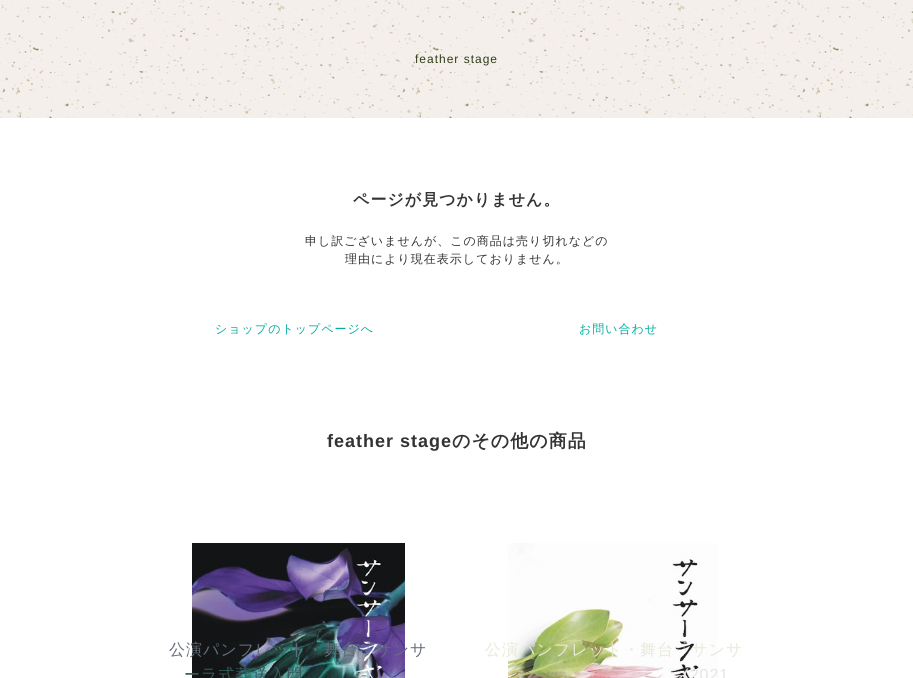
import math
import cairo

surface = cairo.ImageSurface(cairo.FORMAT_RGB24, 913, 678)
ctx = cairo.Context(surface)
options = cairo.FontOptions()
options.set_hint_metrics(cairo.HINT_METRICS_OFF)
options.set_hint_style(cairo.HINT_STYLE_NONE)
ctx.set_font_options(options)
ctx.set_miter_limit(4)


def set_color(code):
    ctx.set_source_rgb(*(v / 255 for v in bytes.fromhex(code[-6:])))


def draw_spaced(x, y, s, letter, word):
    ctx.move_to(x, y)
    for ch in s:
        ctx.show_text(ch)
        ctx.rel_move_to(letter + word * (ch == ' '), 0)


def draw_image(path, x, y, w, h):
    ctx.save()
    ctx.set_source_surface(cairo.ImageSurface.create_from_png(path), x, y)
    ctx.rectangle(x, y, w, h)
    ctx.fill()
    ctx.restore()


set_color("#ffffff")
ctx.paint()
draw_image("assets/img1.png", 0, 0, 913, 118)
ctx.select_font_face("Liberation Sans")
ctx.set_font_size(12)
set_color("#313f19")
draw_spaced(415, 63, "feather stage", 1, 0)
ctx.select_font_face("WenQuanYi Zen Hei", cairo.FONT_SLANT_NORMAL, cairo.FONT_WEIGHT_BOLD)
ctx.set_font_size(16)
set_color("#333333")
draw_spaced(353, 205, "ページが見つかりません。", 1, 0)
ctx.select_font_face("WenQuanYi Zen Hei Medium")
ctx.set_font_size(12)
draw_spaced(305, 245, "申し訳ございませんが、この商品は売り切れなどの", 1, 0)
draw_spaced(345, 263, "理由により現在表示しておりません。", 1, 0)
set_color("#00ae9f")
draw_spaced(215, 333, "ショップのトップページへ", 1, 0)
draw_spaced(579, 333, "お問い合わせ", 1, 0)
ctx.select_font_face("Liberation Sans", cairo.FONT_SLANT_NORMAL, cairo.FONT_WEIGHT_BOLD)
ctx.set_font_size(18)
set_color("#333333")
draw_spaced(327, 447, "feather stage", 1, 0)
ctx.select_font_face("WenQuanYi Zen Hei", cairo.FONT_SLANT_NORMAL, cairo.FONT_WEIGHT_BOLD)
draw_spaced(452, 447, "のその他の商品", 1, 0)
draw_image("assets/img2.png", 192, 543, 213, 135)
ctx.select_font_face("WenQuanYi Zen Hei Medium")
ctx.set_font_size(16)
set_color("#636c79")
draw_spaced(169, 655, "公演パンフレット・舞台「サンサ", 1, 0)
set_color("#345a59")
draw_spaced(184, 680, "ーラ式葬送入門", 1, 0)
ctx.select_font_face("Liberation Sans")
set_color("#8982a9")
draw_spaced(361, 680, "-", 1, 0)
draw_image("assets/img3.png", 508, 543, 210, 135)
ctx.select_font_face("WenQuanYi Zen Hei Medium")
set_color("#e6ead9")
draw_spaced(485, 655, "公演パンフレット・舞台「サンサ", 1, 0)
ctx.select_font_face("Liberation Sans")
set_color("#e6e5e6")
draw_spaced(677, 680, "-(2021", 1, 0)
surface.write_to_png("output.png")
